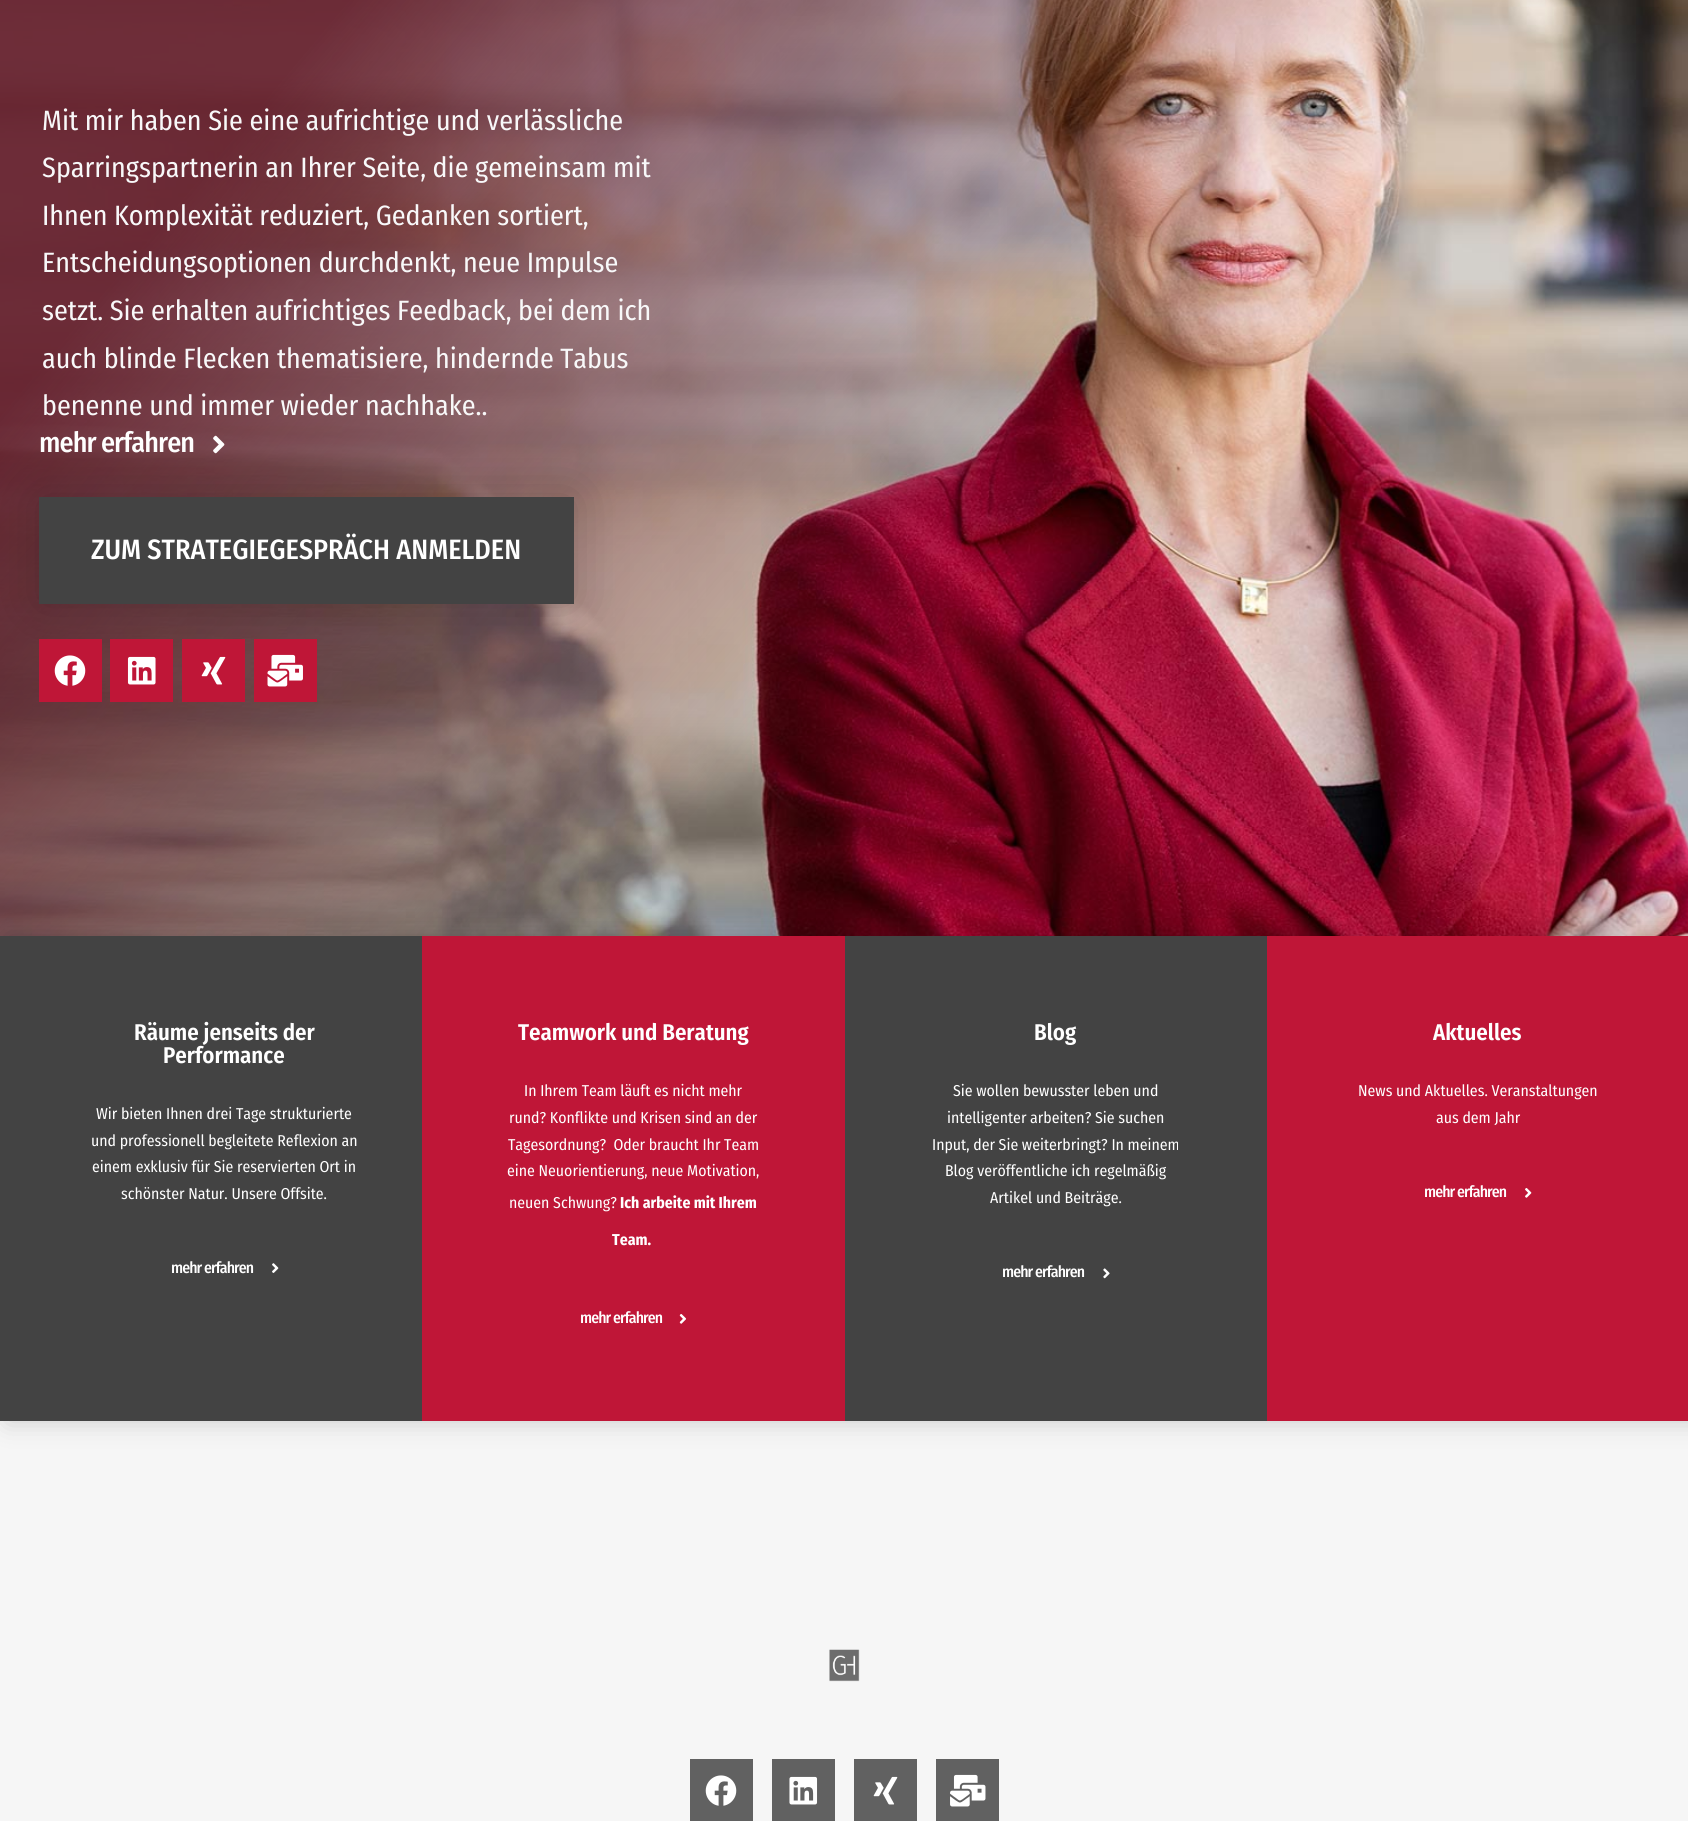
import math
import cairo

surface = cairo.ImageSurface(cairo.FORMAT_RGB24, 1688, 1821)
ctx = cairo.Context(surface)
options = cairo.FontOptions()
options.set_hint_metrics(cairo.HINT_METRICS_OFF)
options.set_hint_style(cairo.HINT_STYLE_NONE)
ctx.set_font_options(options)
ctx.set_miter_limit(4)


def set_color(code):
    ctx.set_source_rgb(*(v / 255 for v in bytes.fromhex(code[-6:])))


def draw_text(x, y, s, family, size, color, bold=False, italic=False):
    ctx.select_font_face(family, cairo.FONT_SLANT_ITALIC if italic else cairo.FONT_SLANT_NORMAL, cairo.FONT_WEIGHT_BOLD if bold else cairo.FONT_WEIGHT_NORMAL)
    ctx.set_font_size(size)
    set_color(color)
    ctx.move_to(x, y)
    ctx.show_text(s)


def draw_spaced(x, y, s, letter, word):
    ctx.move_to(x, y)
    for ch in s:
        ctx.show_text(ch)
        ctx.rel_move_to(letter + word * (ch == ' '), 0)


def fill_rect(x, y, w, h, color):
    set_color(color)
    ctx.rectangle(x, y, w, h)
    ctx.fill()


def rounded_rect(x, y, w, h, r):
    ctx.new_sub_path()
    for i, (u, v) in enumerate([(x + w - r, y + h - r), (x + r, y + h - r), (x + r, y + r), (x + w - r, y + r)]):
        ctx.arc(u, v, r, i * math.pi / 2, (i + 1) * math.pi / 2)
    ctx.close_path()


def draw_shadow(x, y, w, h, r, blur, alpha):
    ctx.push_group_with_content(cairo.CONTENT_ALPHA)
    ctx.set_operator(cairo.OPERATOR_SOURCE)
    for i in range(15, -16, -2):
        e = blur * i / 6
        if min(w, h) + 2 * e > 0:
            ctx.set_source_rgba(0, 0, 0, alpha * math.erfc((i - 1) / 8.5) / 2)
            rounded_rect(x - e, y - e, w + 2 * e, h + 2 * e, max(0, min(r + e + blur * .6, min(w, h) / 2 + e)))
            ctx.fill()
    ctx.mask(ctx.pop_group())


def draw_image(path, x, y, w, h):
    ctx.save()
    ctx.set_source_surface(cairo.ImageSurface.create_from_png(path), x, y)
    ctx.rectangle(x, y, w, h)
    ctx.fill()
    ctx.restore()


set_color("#ffffff")
ctx.paint()
draw_image("assets/img1.png", 0, 0, 1688, 936)
gradient = cairo.LinearGradient(46, -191, 1643, 1149)
gradient.add_color_stop_rgba(0.17, 0.373, 0.086, 0.141, 0.87)
gradient.add_color_stop_rgba(0.55, 0.373, 0.086, 0.141, 0)
ctx.set_source(gradient)
ctx.rectangle(0, 0, 1356, 936)
ctx.fill()
draw_text(42, 130, "Mit mir haben Sie eine aufrichtige und verlässliche", "Fira Sans Condensed", 28, "#f8f8f9")
draw_text(42, 177, "Sparringspartnerin an Ihrer Seite, die gemeinsam mit", "Fira Sans Condensed", 28, "#f8f8f9")
draw_text(42, 225, "Ihnen Komplexität reduziert, Gedanken sortiert,", "Fira Sans Condensed", 28, "#f8f8f9")
draw_text(42, 272, "Entscheidungsoptionen durchdenkt, neue Impulse", "Fira Sans Condensed", 28, "#f8f8f9")
draw_text(42, 320, "setzt. Sie erhalten aufrichtiges Feedback, bei dem ich", "Fira Sans Condensed", 28, "#f8f8f9")
draw_text(42, 368, "auch blinde Flecken thematisiere, hindernde Tabus", "Fira Sans Condensed", 28, "#f8f8f9")
draw_text(42, 415, "benenne und immer wieder nachhake..", "Fira Sans Condensed", 28, "#f8f8f9")
ctx.select_font_face("Fira Sans Condensed Medium")
set_color("#ffffff")
draw_spaced(39, 452, "mehr erfahren", -0.9, 0)
draw_image("assets/img2.png", 213, 435, 12, 19)
set_color("#000000")
draw_shadow(39, 497, 535, 107, 0, 26, 0.2)
fill_rect(39, 497, 535, 107, "#434343")
draw_text(91, 559, "ZUM STRATEGIEGESPRÄCH ANMELDEN", "Fira Sans Condensed Medium", 28, "#ffffff")
fill_rect(39, 639, 63, 63, "#bf1637")
draw_image("assets/img3.png", 54, 655, 32, 31)
fill_rect(110, 639, 63, 63, "#bf1637")
draw_image("assets/img4.png", 127, 656, 29, 29)
fill_rect(182, 639, 63, 63, "#bf1637")
draw_image("assets/img5.png", 201, 656, 25, 29)
fill_rect(254, 639, 63, 63, "#bf1637")
draw_image("assets/img6.png", 267, 654, 36, 33)
fill_rect(0, 1421, 1688, 400, "#f6f6f6")
set_color("#000000")
draw_shadow(7, 936, 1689, 485, 0, 13, 0.18)
fill_rect(0, 936, 422, 485, "#434343")
draw_text(134, 1040, "Räume jenseits der", "Fira Sans Condensed SemiBold", 22.75, "#ffffff")
draw_text(163, 1063, "Performance", "Fira Sans Condensed SemiBold", 22.75, "#ffffff")
draw_text(96, 1119, "Wir bieten Ihnen drei Tage strukturierte", "Fira Sans Condensed", 15.75, "#ffffff")
draw_text(91, 1146, "und professionell begleitete Reflexion an", "Fira Sans Condensed", 15.75, "#ffffff")
draw_text(92, 1172, "einem exklusiv für Sie reservierten Ort in", "Fira Sans Condensed", 15.75, "#ffffff")
draw_text(121, 1199, "schönster Natur. Unsere Offsite.", "Fira Sans Condensed", 15.75, "#ffffff")
ctx.select_font_face("Fira Sans Condensed Medium")
draw_spaced(171, 1273, "mehr erfahren", -0.9, 0)
draw_image("assets/img7.png", 272, 1263, 7, 10)
fill_rect(422, 936, 423, 485, "#bf1637")
draw_text(518, 1040, "Teamwork und Beratung", "Fira Sans Condensed SemiBold", 22.75, "#ffffff")
draw_text(524, 1096, "In Ihrem Team läuft es nicht mehr", "Fira Sans Condensed", 15.75, "#ffffff")
draw_text(509, 1123, "rund? Konflikte und Krisen sind an der", "Fira Sans Condensed", 15.75, "#ffffff")
draw_text(508, 1150, "Tagesordnung?  Oder braucht Ihr Team", "Fira Sans Condensed", 15.75, "#ffffff")
draw_text(507, 1176, "eine Neuorientierung, neue Motivation,", "Fira Sans Condensed", 15.75, "#ffffff")
draw_text(509, 1208, "neuen Schwung?", "Fira Sans Condensed", 15.75, "#ffffff")
draw_text(620, 1208, "Ich arbeite mit Ihrem", "Fira Sans Condensed", 15.75, "#ffffff", bold=True)
draw_text(612, 1245, "Team.", "Fira Sans Condensed", 15.75, "#ffffff", bold=True)
ctx.select_font_face("Fira Sans Condensed Medium")
draw_spaced(580, 1323, "mehr erfahren", -0.9, 0)
draw_image("assets/img8.png", 679, 1314, 8, 10)
fill_rect(845, 936, 422, 485, "#434343")
draw_text(1034, 1040, "Blog", "Fira Sans Condensed SemiBold", 22.75, "#ffffff")
draw_text(953, 1096, "Sie wollen bewusster leben und", "Fira Sans Condensed", 15.75, "#ffffff")
draw_text(947, 1123, "intelligenter arbeiten? Sie suchen", "Fira Sans Condensed", 15.75, "#ffffff")
draw_text(932, 1150, "Input, der Sie weiterbringt? In meinem", "Fira Sans Condensed", 15.75, "#ffffff")
draw_text(945, 1176, "Blog veröffentliche ich regelmäßig", "Fira Sans Condensed", 15.75, "#ffffff")
draw_text(990, 1203, "Artikel und Beiträge.", "Fira Sans Condensed", 15.75, "#ffffff")
ctx.select_font_face("Fira Sans Condensed Medium")
draw_spaced(1002, 1277, "mehr erfahren", -0.9, 0)
draw_image("assets/img9.png", 1103, 1268, 7, 11)
fill_rect(1267, 936, 421, 485, "#bf1637")
draw_text(1433, 1040, "Aktuelles", "Fira Sans Condensed SemiBold", 22.75, "#ffffff")
draw_text(1358, 1096, "News und Aktuelles. Veranstaltungen", "Fira Sans Condensed", 15.75, "#ffffff")
draw_text(1436, 1123, "aus dem Jahr", "Fira Sans Condensed", 15.75, "#ffffff")
ctx.select_font_face("Fira Sans Condensed Medium")
draw_spaced(1424, 1197, "mehr erfahren", -0.9, 0)
draw_image("assets/img10.png", 1525, 1188, 7, 10)
draw_image("assets/img11.png", 829, 1649, 31, 33)
fill_rect(690, 1759, 63, 62, "#616161")
draw_image("assets/img12.png", 705, 1775, 32, 31)
fill_rect(772, 1759, 63, 62, "#616161")
draw_image("assets/img13.png", 789, 1776, 29, 29)
fill_rect(854, 1759, 63, 62, "#616161")
draw_image("assets/img14.png", 873, 1776, 25, 29)
fill_rect(936, 1759, 63, 62, "#616161")
draw_image("assets/img15.png", 950, 1774, 36, 33)
surface.write_to_png("output.png")
